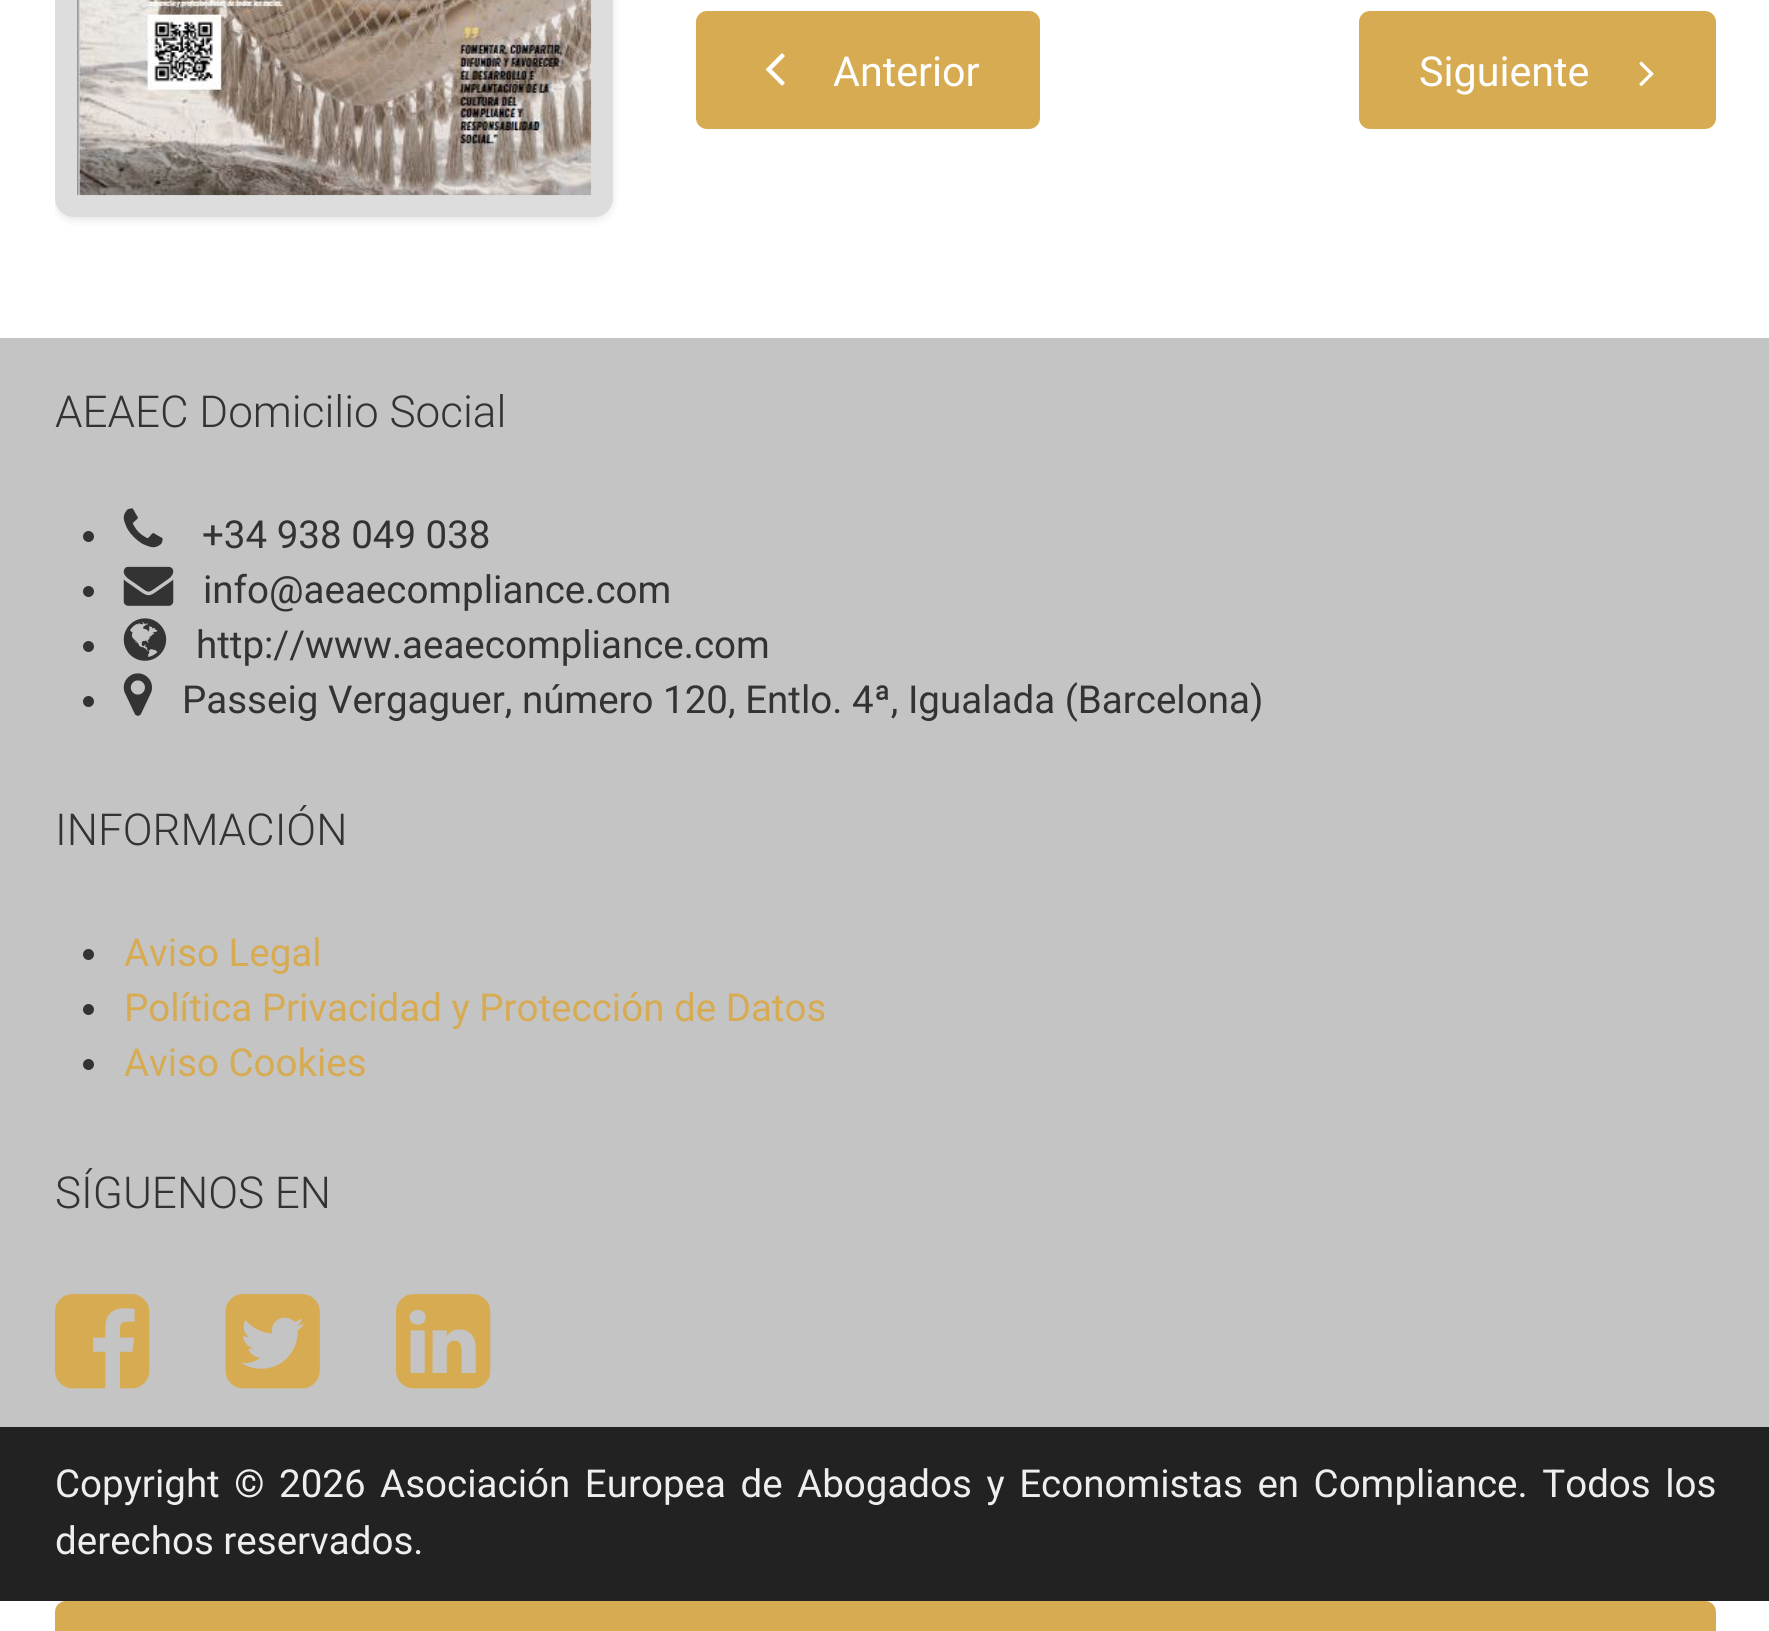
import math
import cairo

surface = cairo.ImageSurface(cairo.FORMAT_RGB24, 1769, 1631)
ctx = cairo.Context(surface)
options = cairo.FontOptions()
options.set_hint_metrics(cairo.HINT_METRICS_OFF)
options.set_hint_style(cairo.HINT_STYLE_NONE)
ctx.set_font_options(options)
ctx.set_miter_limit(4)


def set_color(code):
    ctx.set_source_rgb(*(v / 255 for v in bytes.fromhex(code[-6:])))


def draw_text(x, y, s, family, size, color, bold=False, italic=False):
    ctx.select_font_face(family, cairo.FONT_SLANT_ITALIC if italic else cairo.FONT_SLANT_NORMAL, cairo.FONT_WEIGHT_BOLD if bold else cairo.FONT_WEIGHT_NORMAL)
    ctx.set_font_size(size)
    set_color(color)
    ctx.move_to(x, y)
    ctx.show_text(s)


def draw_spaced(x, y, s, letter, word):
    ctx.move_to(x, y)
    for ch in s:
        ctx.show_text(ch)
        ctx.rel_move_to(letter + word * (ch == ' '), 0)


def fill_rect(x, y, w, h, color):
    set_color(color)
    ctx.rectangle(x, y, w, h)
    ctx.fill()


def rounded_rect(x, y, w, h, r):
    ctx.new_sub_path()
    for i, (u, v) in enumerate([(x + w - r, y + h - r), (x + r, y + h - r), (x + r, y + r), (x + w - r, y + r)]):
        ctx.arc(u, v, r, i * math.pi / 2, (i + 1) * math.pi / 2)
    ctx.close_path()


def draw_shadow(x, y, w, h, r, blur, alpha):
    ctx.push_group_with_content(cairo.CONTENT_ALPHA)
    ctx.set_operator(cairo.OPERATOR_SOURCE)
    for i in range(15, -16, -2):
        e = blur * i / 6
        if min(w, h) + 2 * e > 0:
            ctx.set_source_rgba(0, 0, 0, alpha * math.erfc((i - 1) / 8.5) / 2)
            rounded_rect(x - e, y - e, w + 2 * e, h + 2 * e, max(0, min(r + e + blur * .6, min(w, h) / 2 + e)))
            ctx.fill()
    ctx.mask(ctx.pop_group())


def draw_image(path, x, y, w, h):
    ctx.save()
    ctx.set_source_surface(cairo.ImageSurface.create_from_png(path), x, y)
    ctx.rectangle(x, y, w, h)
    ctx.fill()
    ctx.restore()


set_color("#ffffff")
ctx.paint()
ctx.save()
ctx.rectangle(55, 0, 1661, 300)
ctx.clip()
set_color("#000000")
draw_shadow(55, -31, 558, 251, 19, 4, 0.1)
ctx.restore()
set_color("#dddddd")
rounded_rect(56.5, -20.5, 555, 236, 17.5)
ctx.fill_preserve()
ctx.set_line_width(3)
ctx.stroke()
draw_image("assets/img1.png", 77, 0, 515, 196)
set_color("#d7ab52")
rounded_rect(696, 11, 344, 118, 11)
ctx.fill()
draw_image("assets/img2.png", 766, 53, 19, 33)
draw_text(833, 86, "Anterior", "Roboto", 41.25, "#ffffff")
set_color("#d7ab52")
rounded_rect(1359, 11, 357, 118, 11)
ctx.fill()
draw_text(1419, 86, "Siguiente", "Roboto", 41.25, "#ffffff")
draw_image("assets/img3.png", 1639, 61, 15, 26)
fill_rect(0, 338, 1769, 1089, "#c4c4c4")
draw_text(55, 427, "AEAEC Domicilio Social", "Roboto Light", 44, "#333333")
ctx.new_path()
ctx.arc(88.5, 536.5, 5.5, 0, 2 * math.pi)
ctx.fill()
draw_image("assets/img4.png", 123, 508, 40, 40)
draw_text(202, 548, "+34 938 049 038", "Roboto", 38.5, "#333333")
ctx.new_path()
ctx.arc(88.5, 591.5, 5.5, 0, 2 * math.pi)
ctx.fill()
draw_image("assets/img5.png", 123, 566, 51, 40)
draw_text(203, 603, "info@aeaecompliance.com", "Roboto", 38.5, "#333333")
ctx.new_path()
ctx.arc(88.5, 646.5, 5.5, 0, 2 * math.pi)
ctx.fill()
draw_image("assets/img6.png", 123, 618, 44, 43)
draw_text(196, 658, "http://www.aeaecompliance.com", "Roboto", 38.5, "#333333")
ctx.new_path()
ctx.arc(88.5, 701.5, 5.5, 0, 2 * math.pi)
ctx.fill()
draw_image("assets/img7.png", 123, 673, 29, 43)
draw_text(182, 713, "Passeig Vergaguer, número 120, Entlo. 4ª, Igualada (Barcelona)", "Roboto", 38.5, "#333333")
draw_text(55, 845, "INFORMACIÓN", "Roboto Light", 44, "#333333")
ctx.new_path()
ctx.arc(88.5, 954.5, 5.5, 0, 2 * math.pi)
ctx.fill()
draw_text(124, 966, "Aviso Legal", "Roboto", 38.5, "#d7ab52")
set_color("#333333")
ctx.new_path()
ctx.arc(88.5, 1009.5, 5.5, 0, 2 * math.pi)
ctx.fill()
draw_text(124, 1021, "Política Privacidad y Protección de Datos", "Roboto", 38.5, "#d7ab52")
set_color("#333333")
ctx.new_path()
ctx.arc(88.5, 1064.5, 5.5, 0, 2 * math.pi)
ctx.fill()
draw_text(124, 1076, "Aviso Cookies", "Roboto", 38.5, "#d7ab52")
draw_text(55, 1208, "SÍGUENOS EN", "Roboto Light", 44, "#333333")
draw_image("assets/img8.png", 55, 1294, 95, 95)
draw_image("assets/img9.png", 225, 1294, 95, 95)
draw_image("assets/img10.png", 396, 1294, 95, 95)
fill_rect(0, 1427, 1769, 174, "#222222")
ctx.select_font_face("Roboto")
ctx.set_font_size(38.5)
set_color("#eeeeee")
draw_spaced(55, 1497, "Copyright © 2026 Asociación Europea de Abogados y Economistas en Compliance. Todos los", 0, 5)
draw_text(55, 1554, "derechos reservados.", "Roboto", 38.5, "#eeeeee")
set_color("#d7ab52")
rounded_rect(55, 1601, 1661, 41, 11)
ctx.fill()
surface.write_to_png("output.png")
